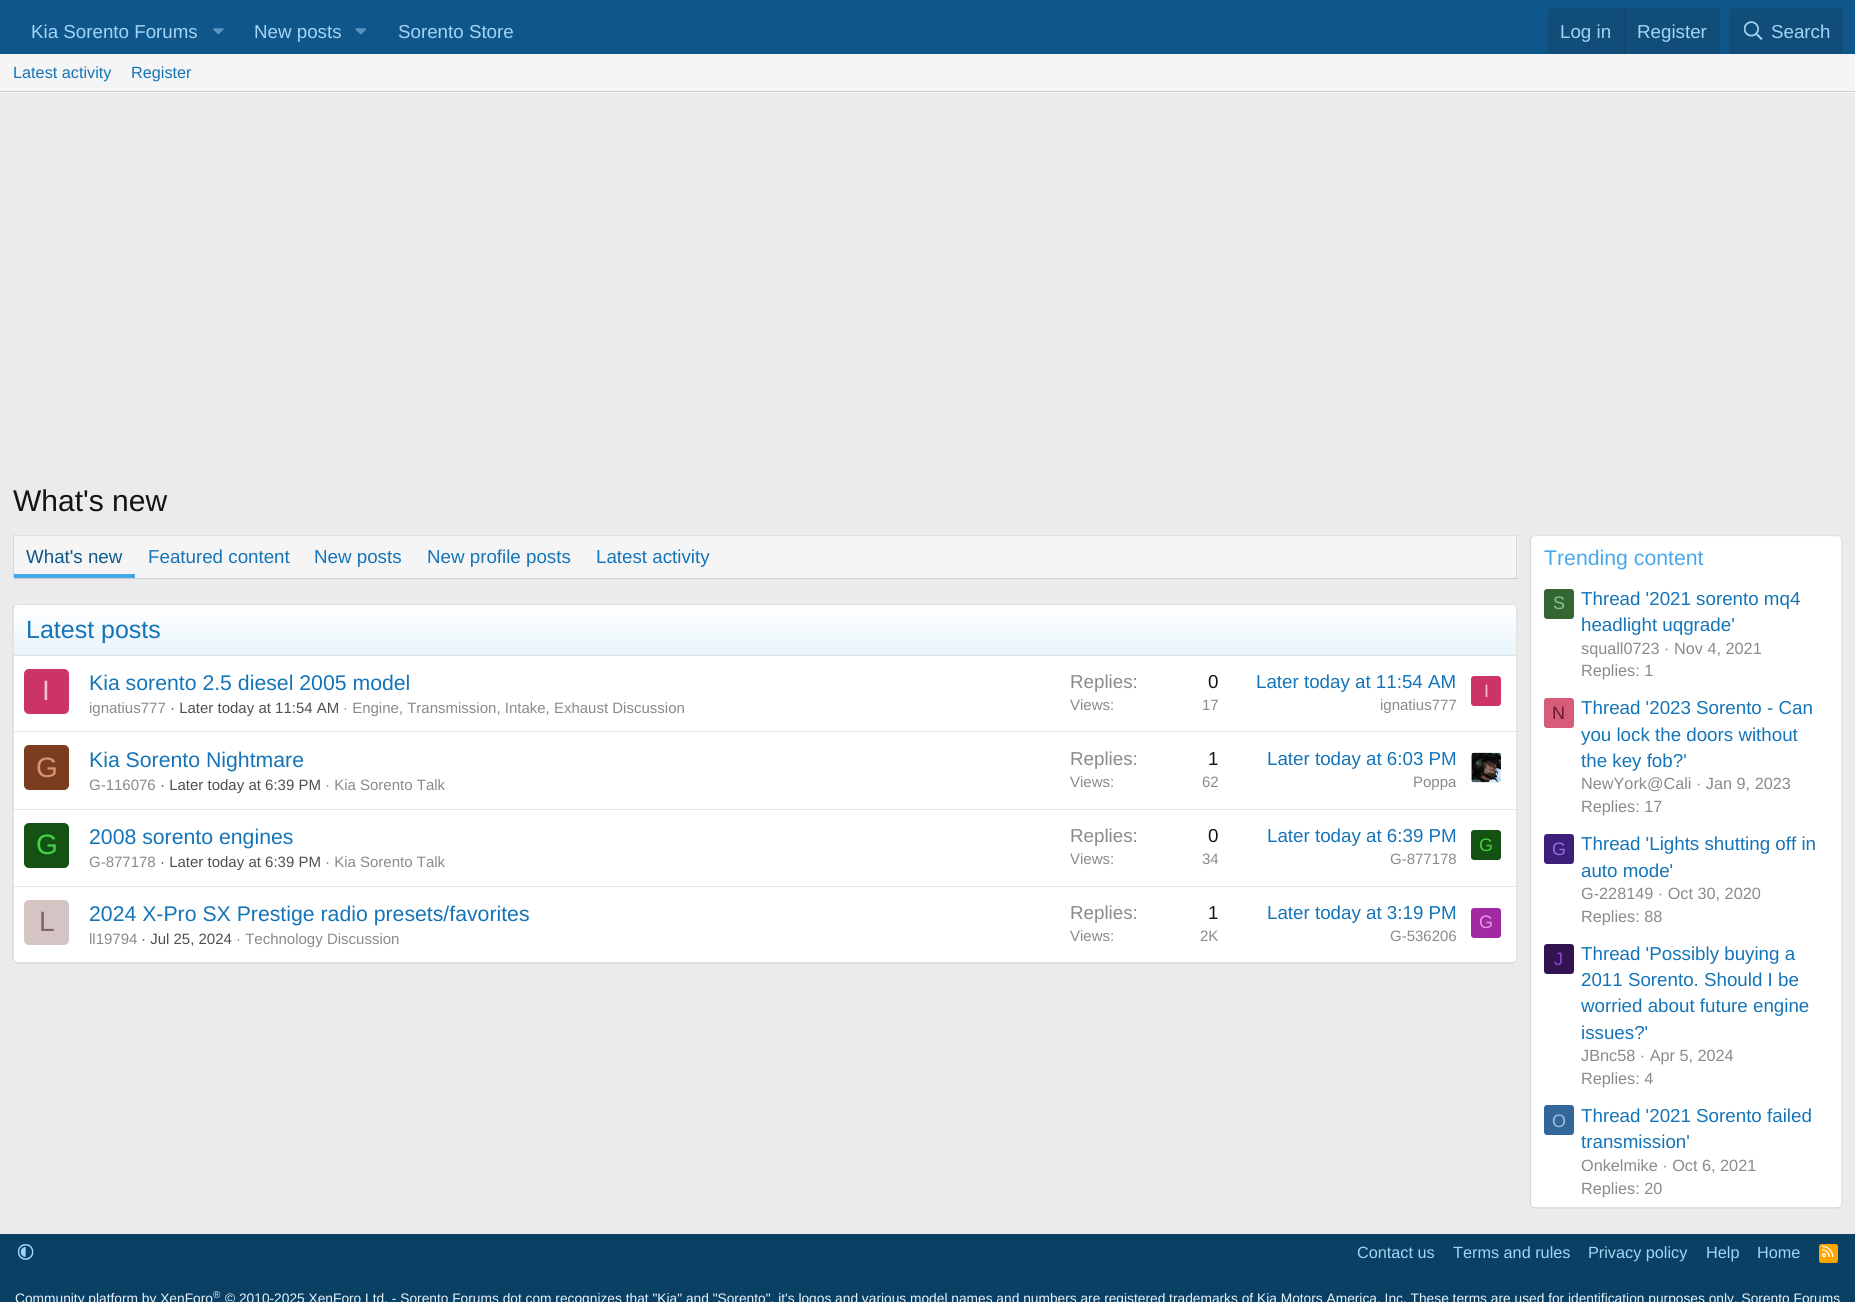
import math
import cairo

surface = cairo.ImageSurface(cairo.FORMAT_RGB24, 1855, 1302)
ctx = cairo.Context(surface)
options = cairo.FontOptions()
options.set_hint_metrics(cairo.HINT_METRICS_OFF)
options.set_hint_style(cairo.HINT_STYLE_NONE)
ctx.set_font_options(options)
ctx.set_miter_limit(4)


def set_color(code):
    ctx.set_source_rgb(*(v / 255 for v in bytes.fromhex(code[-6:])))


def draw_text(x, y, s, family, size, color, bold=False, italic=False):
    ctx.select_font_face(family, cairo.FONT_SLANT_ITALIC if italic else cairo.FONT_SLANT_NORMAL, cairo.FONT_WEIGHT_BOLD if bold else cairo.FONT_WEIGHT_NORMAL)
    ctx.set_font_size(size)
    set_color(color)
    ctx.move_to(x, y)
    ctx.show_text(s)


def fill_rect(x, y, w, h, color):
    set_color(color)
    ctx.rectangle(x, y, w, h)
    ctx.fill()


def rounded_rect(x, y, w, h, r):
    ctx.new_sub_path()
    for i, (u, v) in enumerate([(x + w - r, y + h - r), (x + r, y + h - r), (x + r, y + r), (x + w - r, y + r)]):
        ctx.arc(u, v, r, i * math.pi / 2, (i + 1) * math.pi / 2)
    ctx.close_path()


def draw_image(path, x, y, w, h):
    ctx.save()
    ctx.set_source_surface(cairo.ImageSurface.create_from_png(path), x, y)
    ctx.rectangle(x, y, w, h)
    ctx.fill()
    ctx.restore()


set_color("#ebebeb")
ctx.paint()
fill_rect(0, 0, 1855, 54, "#0f578a")
draw_text(31, 38, "Kia Sorento Forums", "Liberation Sans", 18.75, "#a3d4f5")
draw_image("assets/img1.png", 213, 28, 11, 7)
draw_text(254, 38, "New posts", "Liberation Sans", 18.75, "#a3d4f5")
draw_image("assets/img2.png", 355, 28, 12, 7)
draw_text(398, 38, "Sorento Store", "Liberation Sans", 18.75, "#a3d4f5")
set_color("#104d78")
ctx.new_path()
ctx.move_to(1553, 8)
ctx.line_to(1715, 8)
ctx.curve_to(1718, 8, 1720, 10, 1720, 13)
ctx.line_to(1720, 54)
ctx.line_to(1548, 54)
ctx.line_to(1548, 13)
ctx.curve_to(1548, 10, 1550, 8, 1553, 8)
ctx.close_path()
ctx.fill()
draw_text(1560, 38, "Log in", "Liberation Sans", 18.75, "#a3d4f5")
fill_rect(1624, 8, 1, 46, "#114469")
draw_text(1637, 38, "Register", "Liberation Sans", 18.75, "#a3d4f5")
set_color("#104d78")
ctx.new_path()
ctx.move_to(1734, 8)
ctx.line_to(1838, 8)
ctx.curve_to(1841, 8, 1843, 10, 1843, 13)
ctx.line_to(1843, 54)
ctx.line_to(1729, 54)
ctx.line_to(1729, 13)
ctx.curve_to(1729, 10, 1731, 8, 1734, 8)
ctx.close_path()
ctx.fill()
draw_image("assets/img3.png", 1744, 21, 19, 19)
draw_text(1771, 38, "Search", "Liberation Sans", 18.75, "#a3d4f5")
fill_rect(0, 54, 1855, 39, "#f5f5f5")
fill_rect(0, 91, 1855, 1, "#cccccc")
draw_text(13, 78, "Latest activity", "Liberation Sans", 16.25, "#1474b8")
draw_text(131, 78, "Register", "Liberation Sans", 16.25, "#1474b8")
draw_text(13, 511, "What's new", "Liberation Sans", 30, "#141414")
fill_rect(14, 536, 1504, 42, "#f5f5f5")
fill_rect(13, 535, 1505, 1, "#e0e0e0")
fill_rect(1516, 535, 1, 44, "#d6d6d6")
fill_rect(13, 578, 1505, 1, "#cccccc")
fill_rect(13, 535, 1, 44, "#d6d6d6")
fill_rect(14, 574, 121, 4, "#47a7eb")
draw_text(26, 563, "What's new", "Liberation Sans", 18.75, "#0f578a")
draw_text(148, 563, "Featured content", "Liberation Sans", 18.75, "#1474b8")
draw_text(314, 563, "New posts", "Liberation Sans", 18.75, "#1474b8")
draw_text(427, 563, "New profile posts", "Liberation Sans", 18.75, "#1474b8")
draw_text(596, 563, "Latest activity", "Liberation Sans", 18.75, "#1474b8")
set_color("#ffffff")
rounded_rect(13, 604, 1505, 360, 5)
ctx.fill()
ctx.new_path()
ctx.move_to(14.5, 605.5)
ctx.line_to(17.5, 604.5)
ctx.line_to(1512.5, 604.5)
ctx.line_to(1515.5, 605.5)
set_color("#e0e0e0")
ctx.set_line_width(1.2)
ctx.stroke()
ctx.new_path()
ctx.move_to(1515.5, 605.5)
ctx.line_to(1517, 609)
ctx.line_to(1517, 959)
ctx.line_to(1515.5, 962)
set_color("#d6d6d6")
ctx.stroke()
ctx.new_path()
ctx.move_to(1515.5, 962)
ctx.line_to(1512.5, 963)
ctx.line_to(17.5, 963)
ctx.line_to(14.5, 962)
set_color("#cccccc")
ctx.stroke()
ctx.new_path()
ctx.move_to(14.5, 962)
ctx.line_to(13, 959)
ctx.line_to(13, 609)
ctx.line_to(14.5, 605.5)
set_color("#d6d6d6")
ctx.stroke()
gradient = cairo.LinearGradient(765, 655, 765, 605)
gradient.add_color_stop_rgba(0, 0.91, 0.957, 0.988, 1)
gradient.add_color_stop_rgba(1, 1, 1, 1, 1)
ctx.set_source(gradient)
ctx.new_path()
ctx.move_to(18, 605)
ctx.line_to(1512, 605)
ctx.curve_to(1514, 605, 1516, 607, 1516, 609)
ctx.line_to(1516, 655)
ctx.line_to(14, 655)
ctx.line_to(14, 609)
ctx.curve_to(14, 607, 16, 605, 18, 605)
ctx.close_path()
ctx.fill()
fill_rect(14, 655, 1502, 1, "#e0e0e0")
draw_text(26, 638, "Latest posts", "Liberation Sans", 25, "#1474b8")
set_color("#cc3366")
rounded_rect(24, 669, 45, 45, 5)
ctx.fill()
draw_text(42, 700, "I", "Liberation Sans", 28, "#f0c2d1")
draw_text(89, 690, "Kia sorento 2.5 diesel 2005 model", "Liberation Sans", 21.25, "#1474b8")
draw_text(89, 713, "ignatius777", "Liberation Sans", 15, "#8a8a8a")
draw_text(170, 713, "· Later today at 11:54 AM", "Liberation Sans", 15, "#4f4f4f")
draw_text(343, 713, "· Engine, Transmission, Intake, Exhaust Discussion", "Liberation Sans", 15, "#8a8a8a")
draw_text(1070, 688, "Replies:", "Liberation Sans", 18.75, "#8a8a8a")
draw_text(1208, 688, "0", "Liberation Sans", 18.75, "#141414")
draw_text(1070, 710, "Views:", "Liberation Sans", 15, "#8a8a8a")
draw_text(1202, 710, "17", "Liberation Sans", 15, "#8a8a8a")
draw_text(1256, 688, "Later today at 11:54 AM", "Liberation Sans", 18.75, "#1474b8")
draw_text(1380, 710, "ignatius777", "Liberation Sans", 15, "#8a8a8a")
set_color("#cc3366")
rounded_rect(1471, 676, 30, 30, 3)
ctx.fill()
draw_text(1484, 697, "I", "Liberation Sans", 18, "#f0c2d1")
fill_rect(14, 731, 1502, 1, "#e6e6e6")
set_color("#7a3d1f")
rounded_rect(24, 745, 45, 45, 5)
ctx.fill()
draw_text(36, 777, "G", "Liberation Sans", 28, "#db9470")
draw_text(89, 767, "Kia Sorento Nightmare", "Liberation Sans", 21.25, "#1474b8")
draw_text(89, 790, "G-116076", "Liberation Sans", 15, "#8a8a8a")
draw_text(160, 790, "· Later today at 6:39 PM", "Liberation Sans", 15, "#4f4f4f")
draw_text(325, 790, "· Kia Sorento Talk", "Liberation Sans", 15, "#8a8a8a")
draw_text(1070, 765, "Replies:", "Liberation Sans", 18.75, "#8a8a8a")
draw_text(1208, 765, "1", "Liberation Sans", 18.75, "#141414")
draw_text(1070, 787, "Views:", "Liberation Sans", 15, "#8a8a8a")
draw_text(1202, 787, "62", "Liberation Sans", 15, "#8a8a8a")
draw_text(1267, 765, "Later today at 6:03 PM", "Liberation Sans", 18.75, "#1474b8")
draw_text(1413, 787, "Poppa", "Liberation Sans", 15, "#8a8a8a")
draw_image("assets/img4.png", 1471, 752, 30, 31)
fill_rect(14, 809, 1502, 1, "#e6e6e6")
set_color("#145214")
rounded_rect(24, 823, 45, 45, 5)
ctx.fill()
draw_text(36, 854, "G", "Liberation Sans", 28, "#47d147")
draw_text(89, 844, "2008 sorento engines", "Liberation Sans", 21.25, "#1474b8")
draw_text(89, 867, "G-877178", "Liberation Sans", 15, "#8a8a8a")
draw_text(160, 867, "· Later today at 6:39 PM", "Liberation Sans", 15, "#4f4f4f")
draw_text(325, 867, "· Kia Sorento Talk", "Liberation Sans", 15, "#8a8a8a")
draw_text(1070, 842, "Replies:", "Liberation Sans", 18.75, "#8a8a8a")
draw_text(1208, 842, "0", "Liberation Sans", 18.75, "#141414")
draw_text(1070, 864, "Views:", "Liberation Sans", 15, "#8a8a8a")
draw_text(1202, 864, "34", "Liberation Sans", 15, "#8a8a8a")
draw_text(1267, 842, "Later today at 6:39 PM", "Liberation Sans", 18.75, "#1474b8")
draw_text(1390, 864, "G-877178", "Liberation Sans", 15, "#8a8a8a")
set_color("#145214")
rounded_rect(1471, 830, 30, 30, 3)
ctx.fill()
draw_text(1479, 851, "G", "Liberation Sans", 18, "#47d147")
fill_rect(14, 886, 1502, 1, "#e6e6e6")
set_color("#d4c4c4")
rounded_rect(24, 900, 45, 45, 5)
ctx.fill()
draw_text(39, 931, "L", "Liberation Sans", 28, "#846262")
draw_text(89, 921, "2024 X-Pro SX Prestige radio presets/favorites", "Liberation Sans", 21.25, "#1474b8")
draw_text(89, 944, "ll19794", "Liberation Sans", 15, "#8a8a8a")
draw_text(141, 944, "· Jul 25, 2024", "Liberation Sans", 15, "#4f4f4f")
draw_text(236, 944, "· Technology Discussion", "Liberation Sans", 15, "#8a8a8a")
draw_text(1070, 919, "Replies:", "Liberation Sans", 18.75, "#8a8a8a")
draw_text(1208, 919, "1", "Liberation Sans", 18.75, "#141414")
draw_text(1070, 941, "Views:", "Liberation Sans", 15, "#8a8a8a")
draw_text(1200, 941, "2K", "Liberation Sans", 15, "#8a8a8a")
draw_text(1267, 919, "Later today at 3:19 PM", "Liberation Sans", 18.75, "#1474b8")
draw_text(1390, 941, "G-536206", "Liberation Sans", 15, "#8a8a8a")
set_color("#a329a3")
rounded_rect(1471, 908, 30, 30, 3)
ctx.fill()
draw_text(1479, 928, "G", "Liberation Sans", 18, "#e699e6")
set_color("#ffffff")
rounded_rect(1530, 535, 313, 674, 5)
ctx.fill()
ctx.new_path()
ctx.move_to(1532, 537)
ctx.curve_to(1532.5, 536, 1534, 535.5, 1535, 535.5)
ctx.line_to(1837.5, 535.5)
ctx.curve_to(1838.5, 535.5, 1840, 536, 1840.5, 537)
set_color("#e0e0e0")
ctx.stroke()
ctx.new_path()
ctx.move_to(1840.5, 537)
ctx.curve_to(1841.5, 537.5, 1842, 539, 1842, 540)
ctx.line_to(1842, 1204)
ctx.curve_to(1842, 1205, 1841.5, 1206, 1840.5, 1207)
set_color("#d6d6d6")
ctx.stroke()
ctx.new_path()
ctx.move_to(1840.5, 1207)
ctx.curve_to(1840, 1207.5, 1838.5, 1208, 1837.5, 1208)
ctx.line_to(1535, 1208)
ctx.curve_to(1534, 1208, 1532.5, 1207.5, 1532, 1207)
set_color("#cccccc")
ctx.stroke()
ctx.new_path()
ctx.move_to(1532, 1207)
ctx.curve_to(1531, 1206, 1530.5, 1205, 1530.5, 1204)
ctx.line_to(1530.5, 540)
ctx.curve_to(1530.5, 539, 1531, 537.5, 1532, 537)
set_color("#d6d6d6")
ctx.stroke()
draw_text(1544, 565, "Trending content", "Liberation Sans", 21.25, "#47a7eb")
set_color("#336633")
rounded_rect(1544, 589, 30, 30, 3)
ctx.fill()
draw_text(1553, 609, "S", "Liberation Sans", 18, "#88c388")
draw_text(1581, 605, "Thread '2021 sorento mq4", "Liberation Sans", 18.75, "#1474b8")
draw_text(1581, 631, "headlight uqgrade'", "Liberation Sans", 18.75, "#1474b8")
draw_text(1581, 654, "squall0723 · Nov 4, 2021", "Liberation Sans", 16.25, "#8a8a8a")
draw_text(1581, 676, "Replies: 1", "Liberation Sans", 16.25, "#8a8a8a")
set_color("#d65c7a")
rounded_rect(1544, 698, 30, 30, 3)
ctx.fill()
draw_text(1552, 719, "N", "Liberation Sans", 18, "#661a2d")
draw_text(1581, 714, "Thread '2023 Sorento - Can", "Liberation Sans", 18.75, "#1474b8")
draw_text(1581, 741, "you lock the doors without", "Liberation Sans", 18.75, "#1474b8")
draw_text(1581, 767, "the key fob?'", "Liberation Sans", 18.75, "#1474b8")
draw_text(1581, 789, "NewYork@Cali · Jan 9, 2023", "Liberation Sans", 16.25, "#8a8a8a")
draw_text(1581, 812, "Replies: 17", "Liberation Sans", 16.25, "#8a8a8a")
set_color("#3d1f7a")
rounded_rect(1544, 834, 30, 30, 3)
ctx.fill()
draw_text(1552, 855, "G", "Liberation Sans", 18, "#9470db")
draw_text(1581, 850, "Thread 'Lights shutting off in", "Liberation Sans", 18.75, "#1474b8")
draw_text(1581, 877, "auto mode'", "Liberation Sans", 18.75, "#1474b8")
draw_text(1581, 899, "G-228149 · Oct 30, 2020", "Liberation Sans", 16.25, "#8a8a8a")
draw_text(1581, 922, "Replies: 88", "Liberation Sans", 16.25, "#8a8a8a")
set_color("#331452")
rounded_rect(1544, 944, 30, 30, 3)
ctx.fill()
draw_text(1554, 965, "J", "Liberation Sans", 18, "#8c47d1")
draw_text(1581, 960, "Thread 'Possibly buying a", "Liberation Sans", 18.75, "#1474b8")
draw_text(1581, 986, "2011 Sorento. Should I be", "Liberation Sans", 18.75, "#1474b8")
draw_text(1581, 1012, "worried about future engine", "Liberation Sans", 18.75, "#1474b8")
draw_text(1581, 1039, "issues?'", "Liberation Sans", 18.75, "#1474b8")
draw_text(1581, 1061, "JBnc58 · Apr 5, 2024", "Liberation Sans", 16.25, "#8a8a8a")
draw_text(1581, 1084, "Replies: 4", "Liberation Sans", 16.25, "#8a8a8a")
set_color("#336699")
rounded_rect(1544, 1105, 30, 30, 3)
ctx.fill()
draw_text(1552, 1127, "O", "Liberation Sans", 18, "#9fbfdf")
draw_text(1581, 1122, "Thread '2021 Sorento failed", "Liberation Sans", 18.75, "#1474b8")
draw_text(1581, 1148, "transmission'", "Liberation Sans", 18.75, "#1474b8")
draw_text(1581, 1171, "Onkelmike · Oct 6, 2021", "Liberation Sans", 16.25, "#8a8a8a")
draw_text(1581, 1194, "Replies: 20", "Liberation Sans", 16.25, "#8a8a8a")
fill_rect(0, 1234, 1855, 68, "#0b4065")
draw_image("assets/img5.png", 17, 1244, 17, 16)
draw_text(1357, 1258, "Contact us", "Liberation Sans", 16.25, "#a3d4f5")
draw_text(1453, 1258, "Terms and rules", "Liberation Sans", 16.25, "#a3d4f5")
draw_text(1588, 1258, "Privacy policy", "Liberation Sans", 16.25, "#a3d4f5")
draw_text(1706, 1258, "Help", "Liberation Sans", 16.25, "#a3d4f5")
draw_text(1757, 1258, "Home", "Liberation Sans", 16.25, "#a3d4f5")
set_color("#ffa500")
rounded_rect(1819, 1244, 19, 19, 2.5)
ctx.fill()
draw_image("assets/img6.png", 1822, 1245, 12, 13)
draw_text(15, 1303, "Community platform by XenForo", "Liberation Sans", 13.75, "#e8f4fc")
draw_text(213, 1298, "®", "Liberation Sans", 10, "#e8f4fc")
draw_text(225, 1303, "© 2010-2025 XenForo Ltd. - Sorento Forums dot com recognizes that \"Kia\" and \"Sorento\", it's logos and various model names and numbers are registered trademarks of Kia Motors America, Inc. These terms are used for identification purposes only. Sorento Forums", "Liberation Sans", 13.75, "#e8f4fc")
surface.write_to_png("output.png")
